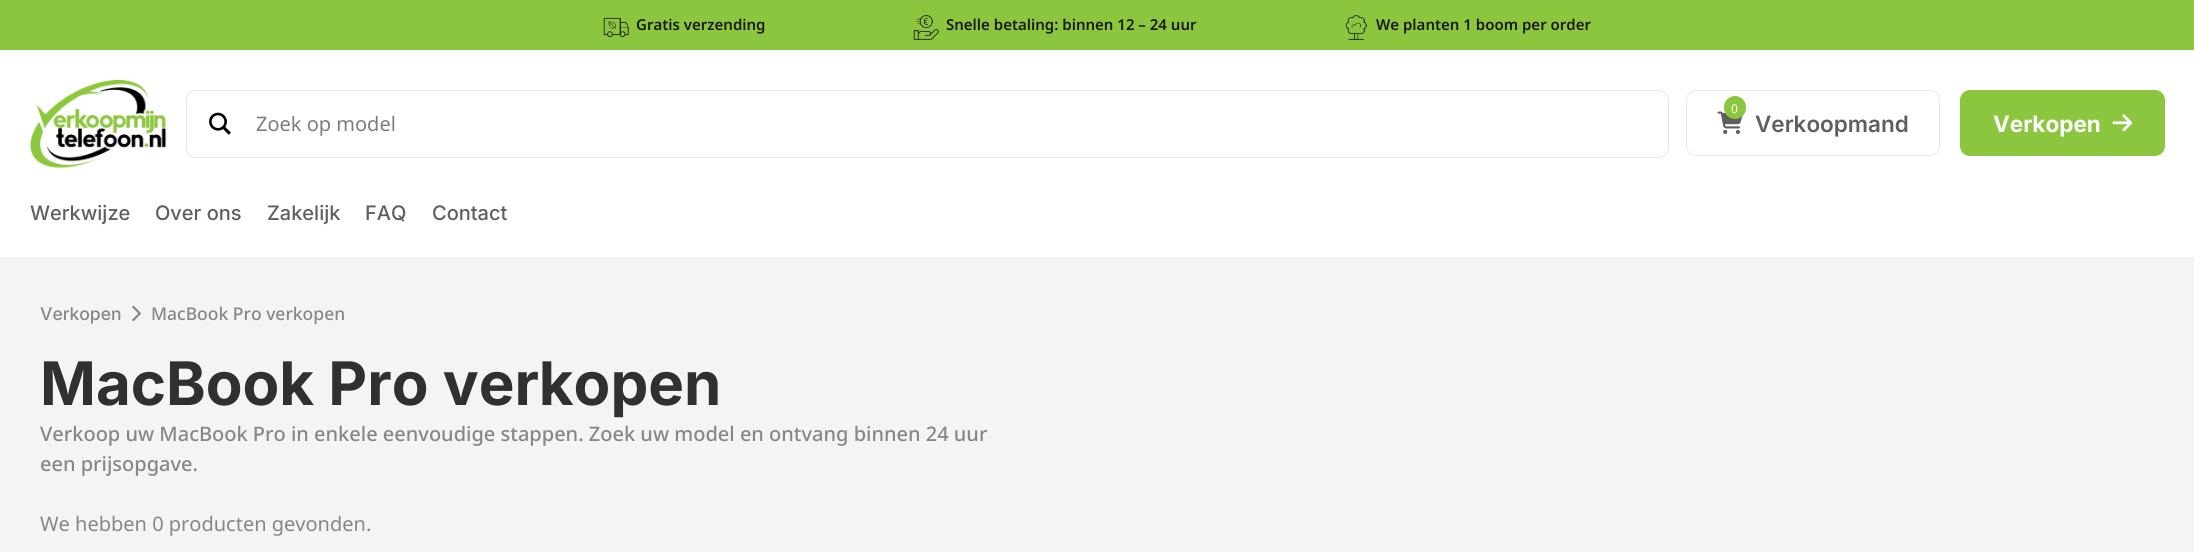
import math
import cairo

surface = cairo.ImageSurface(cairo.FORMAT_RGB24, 2194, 552)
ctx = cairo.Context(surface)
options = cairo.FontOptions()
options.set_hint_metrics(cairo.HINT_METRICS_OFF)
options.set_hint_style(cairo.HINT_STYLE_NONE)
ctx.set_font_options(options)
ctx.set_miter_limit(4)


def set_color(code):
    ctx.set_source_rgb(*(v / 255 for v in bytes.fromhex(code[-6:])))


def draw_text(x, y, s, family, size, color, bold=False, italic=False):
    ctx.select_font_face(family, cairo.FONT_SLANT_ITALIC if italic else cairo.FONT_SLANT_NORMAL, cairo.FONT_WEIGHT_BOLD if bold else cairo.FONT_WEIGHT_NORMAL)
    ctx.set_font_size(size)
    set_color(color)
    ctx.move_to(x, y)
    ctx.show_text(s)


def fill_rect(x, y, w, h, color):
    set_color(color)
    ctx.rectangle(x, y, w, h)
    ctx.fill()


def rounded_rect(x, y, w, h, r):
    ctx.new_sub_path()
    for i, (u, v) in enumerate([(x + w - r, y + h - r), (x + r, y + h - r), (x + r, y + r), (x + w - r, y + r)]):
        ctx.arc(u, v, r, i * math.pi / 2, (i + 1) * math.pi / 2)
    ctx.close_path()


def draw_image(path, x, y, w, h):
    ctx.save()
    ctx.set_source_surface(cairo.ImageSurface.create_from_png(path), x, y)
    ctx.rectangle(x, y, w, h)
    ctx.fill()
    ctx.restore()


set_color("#ffffff")
ctx.paint()
fill_rect(0, 258, 2194, 1, "#e8e8e8")
fill_rect(0, 0, 2194, 50, "#8cc63e")
draw_image("assets/img1.png", 603, 17, 26, 21)
draw_text(636, 30, "Gratis verzending", "Noto Sans SemiBold", 15, "#1a1a1a")
draw_image("assets/img2.png", 913, 15, 26, 25)
draw_text(946, 30, "Snelle betaling: binnen 12 – 24 uur", "Noto Sans SemiBold", 15, "#1a1a1a")
draw_image("assets/img3.png", 1345, 15, 22, 25)
draw_text(1376, 30, "We planten 1 boom per order", "Noto Sans SemiBold", 15, "#1a1a1a")
draw_image("assets/img4.png", 30, 80, 137, 88)
rounded_rect(186.5, 90.5, 1482, 67, 9.5)
set_color("#e6e6e6")
ctx.set_line_width(1)
ctx.stroke()
draw_image("assets/img5.png", 209, 112, 22, 23)
draw_text(256, 131, "Zoek op model", "Noto Sans", 20, "#7d7d7d")
rounded_rect(1686.5, 90.5, 253, 65, 9.5)
set_color("#e8e8e8")
ctx.stroke()
draw_image("assets/img6.png", 1717, 111, 26, 23)
set_color("#8cc63e")
rounded_rect(1724, 96, 22, 23, 11)
ctx.fill()
draw_text(1731, 113, "0", "Noto Sans", 12, "#ffffff")
draw_text(1755, 132, "Verkoopmand", "Inter SemiBold", 22.5, "#5f5f5f")
set_color("#8cc63e")
rounded_rect(1960, 90, 205, 66, 10)
ctx.fill()
draw_text(1993, 132, "Verkopen", "Inter", 22.5, "#ffffff", bold=True)
draw_image("assets/img7.png", 2112, 114, 21, 18)
draw_text(30, 220, "Werkwijze", "Inter Medium", 20, "#5f5f5f")
draw_text(155, 220, "Over ons", "Inter Medium", 20, "#5f5f5f")
draw_text(267, 220, "Zakelijk", "Inter Medium", 20, "#5f5f5f")
draw_text(365, 220, "FAQ", "Inter Medium", 20, "#5f5f5f")
draw_text(432, 220, "Contact", "Inter Medium", 20, "#5f5f5f")
fill_rect(0, 259, 2194, 293, "#f4f4f5")
draw_text(40, 320, "Verkopen", "Inter Medium", 17.5, "#878788")
draw_image("assets/img8.png", 132, 305, 9, 16)
draw_text(151, 320, "MacBook Pro verkopen", "Noto Sans Medium", 17.5, "#878788")
draw_text(40, 405, "MacBook Pro verkopen", "Inter", 60, "#303030", bold=True)
draw_text(40, 441, "Verkoop uw MacBook Pro in enkele eenvoudige stappen. Zoek uw model en ontvang binnen 24 uur", "Noto Sans Medium", 20, "#878788")
draw_text(40, 471, "een prijsopgave.", "Noto Sans Medium", 20, "#878788")
draw_text(40, 531, "We hebben 0 producten gevonden.", "Noto Sans", 20, "#878788")
surface.write_to_png("output.png")
